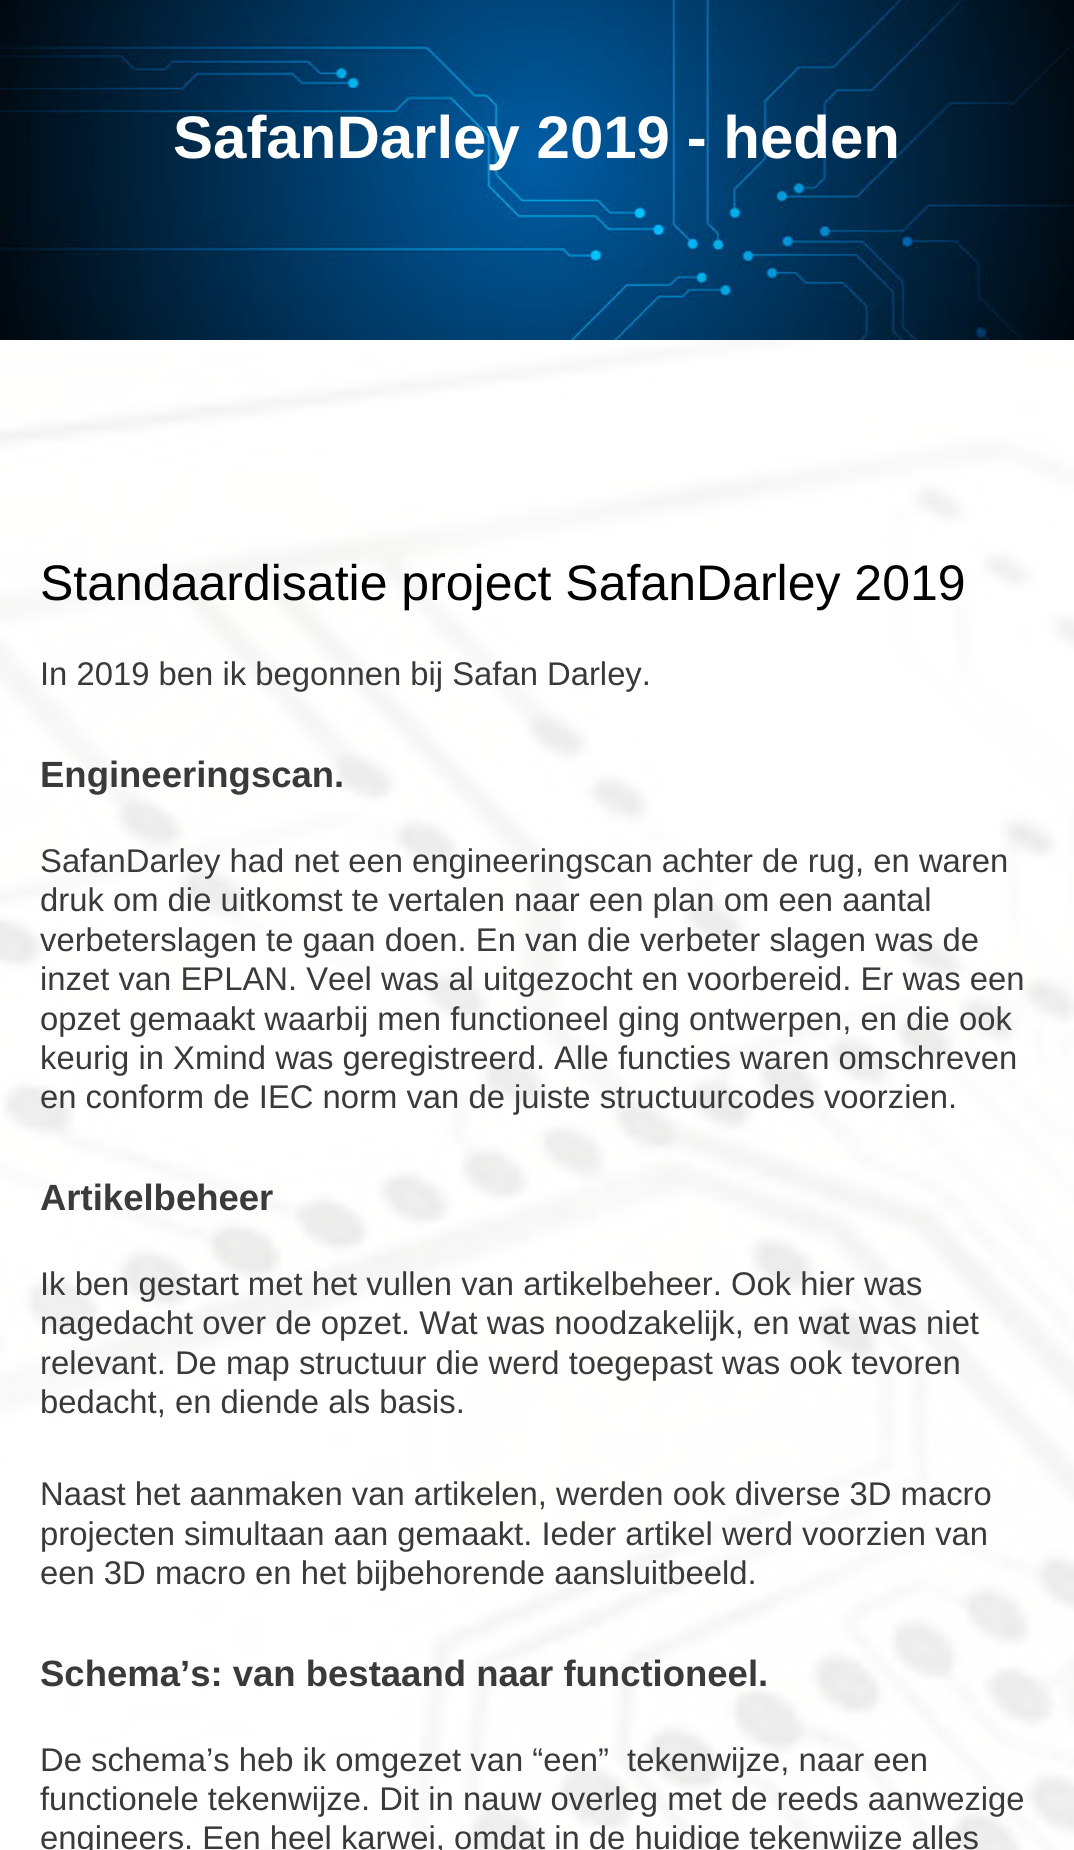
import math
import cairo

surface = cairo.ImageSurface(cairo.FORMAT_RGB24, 1074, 1850)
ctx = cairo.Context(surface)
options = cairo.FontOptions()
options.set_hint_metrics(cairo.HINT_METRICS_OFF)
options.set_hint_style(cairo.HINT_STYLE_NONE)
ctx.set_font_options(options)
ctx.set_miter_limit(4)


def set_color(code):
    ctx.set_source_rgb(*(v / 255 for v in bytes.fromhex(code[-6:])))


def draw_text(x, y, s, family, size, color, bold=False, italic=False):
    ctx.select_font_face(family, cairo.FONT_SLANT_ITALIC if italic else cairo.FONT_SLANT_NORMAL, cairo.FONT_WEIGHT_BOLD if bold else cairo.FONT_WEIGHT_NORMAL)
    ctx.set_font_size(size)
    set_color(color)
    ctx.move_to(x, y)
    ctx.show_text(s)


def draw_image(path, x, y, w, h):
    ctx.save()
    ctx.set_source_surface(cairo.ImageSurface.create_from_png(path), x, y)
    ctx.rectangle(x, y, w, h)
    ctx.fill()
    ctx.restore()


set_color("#ffffff")
ctx.paint()
draw_image("assets/img1.png", 0, 0, 1074, 340)
draw_text(173, 158, "SafanDarley 2019 - heden", "Liberation Sans", 60, "#ffffff", bold=True)
draw_image("assets/img2.png", 0, 340, 1074, 1510)
draw_text(40, 600, "Standaardisatie project SafanDarley 2019", "Liberation Sans", 50, "#010101")
draw_text(40, 685, "In 2019 ben ik begonnen bij Safan Darley.", "Liberation Sans", 32.8, "#3a3a3a")
draw_text(40, 787, "Engineeringscan.", "Liberation Sans", 36.5, "#3a3a3a", bold=True)
draw_text(40, 872, "SafanDarley had net een engineeringscan achter de rug, en waren", "Liberation Sans", 32.8, "#3a3a3a")
draw_text(40, 911, "druk om die uitkomst te vertalen naar een plan om een aantal", "Liberation Sans", 32.8, "#3a3a3a")
draw_text(40, 951, "verbeterslagen te gaan doen. En van die verbeter slagen was de", "Liberation Sans", 32.8, "#3a3a3a")
draw_text(40, 990, "inzet van EPLAN. Veel was al uitgezocht en voorbereid. Er was een", "Liberation Sans", 32.8, "#3a3a3a")
draw_text(40, 1030, "opzet gemaakt waarbij men functioneel ging ontwerpen, en die ook", "Liberation Sans", 32.8, "#3a3a3a")
draw_text(40, 1069, "keurig in Xmind was geregistreerd. Alle functies waren omschreven", "Liberation Sans", 32.8, "#3a3a3a")
draw_text(40, 1108, "en conform de IEC norm van de juiste structuurcodes voorzien.", "Liberation Sans", 32.8, "#3a3a3a")
draw_text(40, 1210, "Artikelbeheer", "Liberation Sans", 36.5, "#3a3a3a", bold=True)
draw_text(40, 1295, "Ik ben gestart met het vullen van artikelbeheer. Ook hier was", "Liberation Sans", 32.8, "#3a3a3a")
draw_text(40, 1334, "nagedacht over de opzet. Wat was noodzakelijk, en wat was niet", "Liberation Sans", 32.8, "#3a3a3a")
draw_text(40, 1374, "relevant. De map structuur die werd toegepast was ook tevoren", "Liberation Sans", 32.8, "#3a3a3a")
draw_text(40, 1413, "bedacht, en diende als basis.", "Liberation Sans", 32.8, "#3a3a3a")
draw_text(40, 1505, "Naast het aanmaken van artikelen, werden ook diverse 3D macro", "Liberation Sans", 32.8, "#3a3a3a")
draw_text(40, 1545, "projecten simultaan aan gemaakt. Ieder artikel werd voorzien van", "Liberation Sans", 32.8, "#3a3a3a")
draw_text(40, 1584, "een 3D macro en het bijbehorende aansluitbeeld.", "Liberation Sans", 32.8, "#3a3a3a")
draw_text(40, 1686, "Schema’s: van bestaand naar functioneel.", "Liberation Sans", 36.5, "#3a3a3a", bold=True)
draw_text(40, 1771, "De schema’s heb ik omgezet van “een”  tekenwijze, naar een", "Liberation Sans", 32.8, "#3a3a3a")
draw_text(40, 1810, "functionele tekenwijze. Dit in nauw overleg met de reeds aanwezige", "Liberation Sans", 32.8, "#3a3a3a")
draw_text(40, 1849, "engineers. Een heel karwei, omdat in de huidige tekenwijze alles", "Liberation Sans", 32.8, "#3a3a3a")
surface.write_to_png("output.png")
